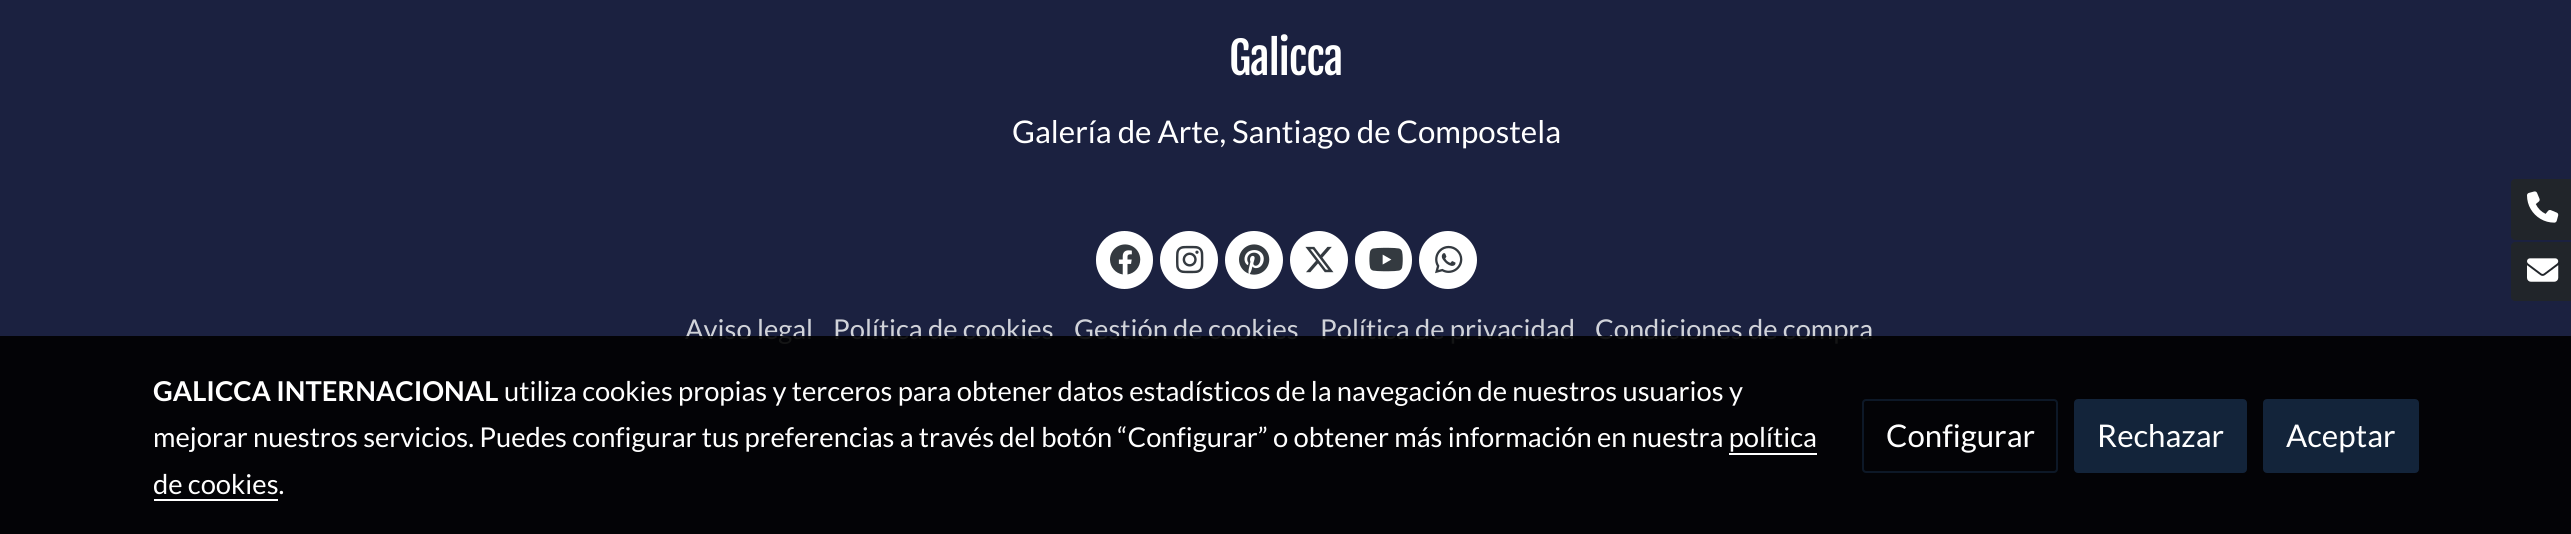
import math
import cairo

surface = cairo.ImageSurface(cairo.FORMAT_RGB24, 2571, 534)
ctx = cairo.Context(surface)
options = cairo.FontOptions()
options.set_hint_metrics(cairo.HINT_METRICS_OFF)
options.set_hint_style(cairo.HINT_STYLE_NONE)
ctx.set_font_options(options)
ctx.set_miter_limit(4)


def set_color(code):
    ctx.set_source_rgb(*(v / 255 for v in bytes.fromhex(code[-6:])))


def draw_text(x, y, s, family, size, color, bold=False, italic=False):
    ctx.select_font_face(family, cairo.FONT_SLANT_ITALIC if italic else cairo.FONT_SLANT_NORMAL, cairo.FONT_WEIGHT_BOLD if bold else cairo.FONT_WEIGHT_NORMAL)
    ctx.set_font_size(size)
    set_color(color)
    ctx.move_to(x, y)
    ctx.show_text(s)


def draw_spaced(x, y, s, letter, word):
    ctx.move_to(x, y)
    for ch in s:
        ctx.show_text(ch)
        ctx.rel_move_to(letter + word * (ch == ' '), 0)


def fill_rect(x, y, w, h, color):
    set_color(color)
    ctx.rectangle(x, y, w, h)
    ctx.fill()


def rounded_rect(x, y, w, h, r):
    ctx.new_sub_path()
    for i, (u, v) in enumerate([(x + w - r, y + h - r), (x + r, y + h - r), (x + r, y + r), (x + w - r, y + r)]):
        ctx.arc(u, v, r, i * math.pi / 2, (i + 1) * math.pi / 2)
    ctx.close_path()


def draw_image(path, x, y, w, h):
    ctx.save()
    ctx.set_source_surface(cairo.ImageSurface.create_from_png(path), x, y)
    ctx.rectangle(x, y, w, h)
    ctx.fill()
    ctx.restore()


set_color("#1b2140")
ctx.paint()
ctx.select_font_face("Fjalla One")
ctx.set_font_size(44)
set_color("#ffffff")
draw_spaced(1229, 75, "Galicca", -1, 0)
draw_text(1012, 143, "Galería de Arte, Santiago de Compostela", "Lato", 31.25, "#ffffff")
rounded_rect(1096, 231, 57, 58, 28.5)
ctx.fill()
draw_image("assets/img1.png", 1110, 244, 31, 31)
ctx.arc(1189, 260, 29, 0, 2 * math.pi)
ctx.fill()
draw_image("assets/img2.png", 1176, 245, 28, 29)
ctx.arc(1254, 260, 29, 0, 2 * math.pi)
ctx.fill()
draw_image("assets/img3.png", 1239, 244, 31, 31)
ctx.arc(1319, 260, 29, 0, 2 * math.pi)
ctx.fill()
draw_image("assets/img4.png", 1305, 246, 29, 27)
rounded_rect(1355, 231, 57, 58, 28.5)
ctx.fill()
draw_image("assets/img5.png", 1369, 247, 34, 25)
ctx.arc(1448, 260, 29, 0, 2 * math.pi)
ctx.fill()
draw_image("assets/img6.png", 1435, 245, 28, 29)
draw_text(685, 339, "Aviso legal", "Lato", 27.33, "#d1d3d9")
draw_text(833, 339, "Política de cookies", "Lato", 27.33, "#d1d3d9")
draw_text(1074, 339, "Gestión de cookies", "Lato", 27.33, "#d1d3d9")
draw_text(1320, 339, "Política de privacidad", "Lato", 27.33, "#d1d3d9")
draw_text(1595, 339, "Condiciones de compra", "Lato", 27.33, "#d1d3d9")
set_color("#21252a")
ctx.new_path()
ctx.move_to(2515, 179)
ctx.line_to(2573, 179)
ctx.line_to(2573, 240)
ctx.line_to(2515, 240)
ctx.curve_to(2513, 240, 2511, 238, 2511, 236)
ctx.line_to(2511, 183)
ctx.curve_to(2511, 181, 2513, 179, 2515, 179)
ctx.close_path()
ctx.fill()
draw_image("assets/img7.png", 2527, 191, 32, 32)
ctx.new_path()
ctx.move_to(2515, 242)
ctx.line_to(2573, 242)
ctx.line_to(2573, 301)
ctx.line_to(2515, 301)
ctx.curve_to(2513, 301, 2511, 299, 2511, 297)
ctx.line_to(2511, 246)
ctx.curve_to(2511, 244, 2513, 242, 2515, 242)
ctx.close_path()
ctx.fill()
draw_image("assets/img8.png", 2527, 258, 32, 24)
ctx.set_source_rgba(0, 0, 0, 0.9)
ctx.rectangle(0, 336, 2571, 198)
ctx.fill()
draw_text(153, 401, "GALICCA INTERNACIONAL", "Lato", 27.33, "#ffffff", bold=True)
draw_text(504, 401, "utiliza cookies propias y terceros para obtener datos estadísticos de la navegación de nuestros usuarios y", "Lato", 27.33, "#ffffff")
draw_text(153, 447, "mejorar nuestros servicios. Puedes configurar tus preferencias a través del botón “Configurar” o obtener más información en nuestra política", "Lato", 27.33, "#ffffff")
fill_rect(1729, 453, 88, 2, "#ffffff")
draw_text(153, 494, "de cookies.", "Lato", 27.33, "#ffffff")
fill_rect(154, 499, 124, 2, "#ffffff")
rounded_rect(1863, 400, 194, 72, 3)
set_color("#0d1827")
ctx.stroke()
draw_text(1886, 447, "Configurar", "Lato", 31.25, "#ffffff")
set_color("#13243a")
rounded_rect(2075, 400, 171, 72, 3)
ctx.fill_preserve()
ctx.stroke()
draw_text(2097, 447, "Rechazar", "Lato", 31.25, "#ffffff")
set_color("#13243a")
rounded_rect(2264, 400, 154, 72, 3)
ctx.fill_preserve()
ctx.stroke()
draw_text(2286, 447, "Aceptar", "Lato", 31.25, "#ffffff")
surface.write_to_png("output.png")
